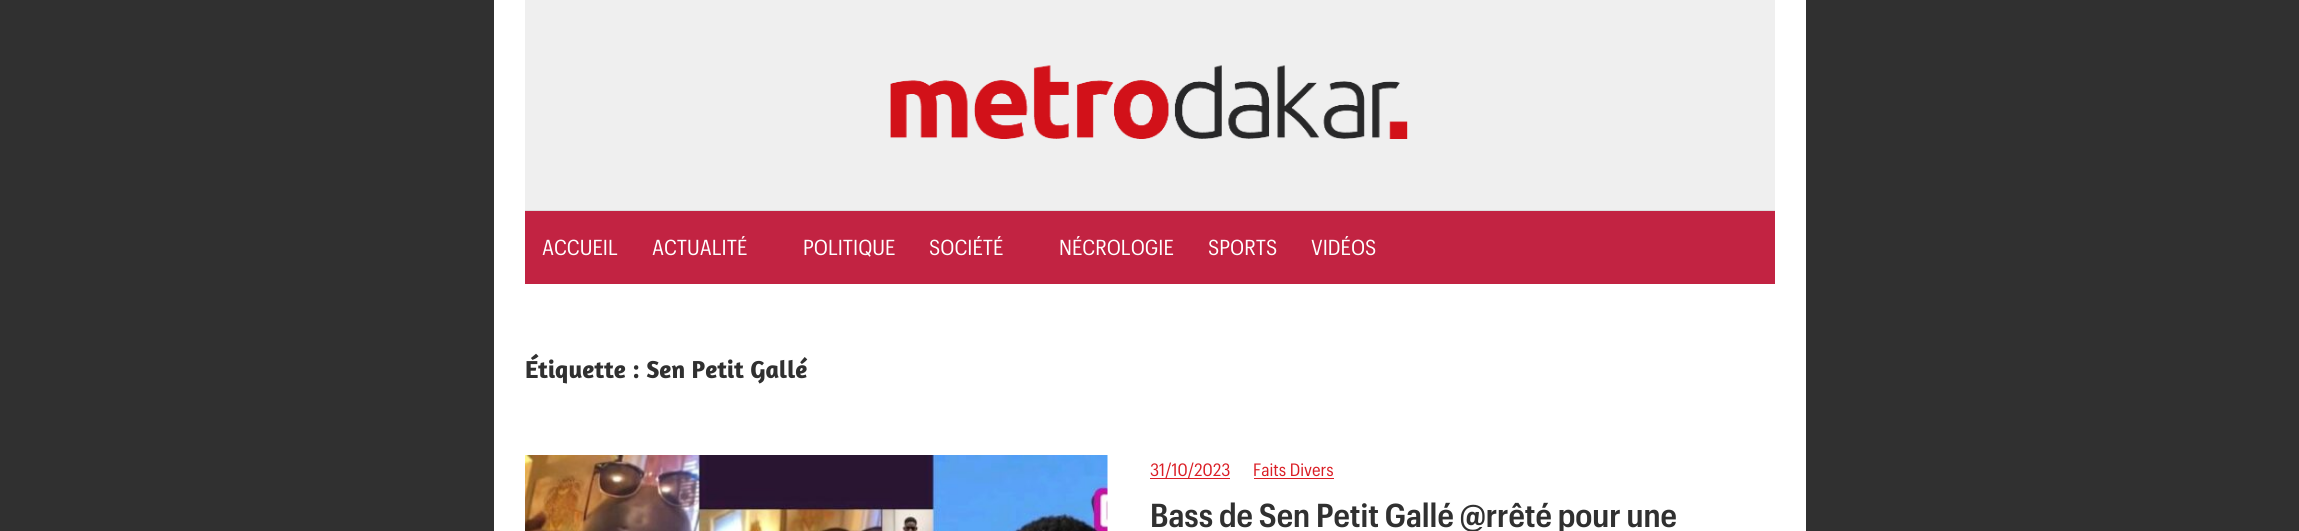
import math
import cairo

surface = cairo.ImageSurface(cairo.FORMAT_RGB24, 2299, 531)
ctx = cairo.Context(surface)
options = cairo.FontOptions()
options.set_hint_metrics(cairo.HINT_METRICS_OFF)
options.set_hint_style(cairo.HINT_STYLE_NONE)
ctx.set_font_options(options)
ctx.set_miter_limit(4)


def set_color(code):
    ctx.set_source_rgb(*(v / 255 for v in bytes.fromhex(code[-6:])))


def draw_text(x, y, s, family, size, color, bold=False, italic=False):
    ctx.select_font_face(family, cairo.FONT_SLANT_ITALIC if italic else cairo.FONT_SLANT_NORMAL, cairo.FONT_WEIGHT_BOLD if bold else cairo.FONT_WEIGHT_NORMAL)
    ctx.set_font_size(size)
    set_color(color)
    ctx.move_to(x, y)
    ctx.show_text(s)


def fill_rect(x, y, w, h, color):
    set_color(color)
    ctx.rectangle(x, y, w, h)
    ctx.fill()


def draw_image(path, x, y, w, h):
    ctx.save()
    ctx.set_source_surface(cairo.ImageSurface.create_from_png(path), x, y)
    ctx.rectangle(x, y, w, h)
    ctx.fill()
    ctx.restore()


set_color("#303030")
ctx.paint()
fill_rect(494, 0, 1312, 531, "#ffffff")
fill_rect(525, 0, 1250, 210, "#efefef")
draw_image("assets/img1.png", 890, 65, 518, 74)
fill_rect(525, 210, 1250, 1, "#dddddd")
fill_rect(525, 211, 1250, 73, "#c22342")
draw_text(542, 255, "ACCUEIL", "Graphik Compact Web", 21.25, "#ffffff")
draw_text(652, 255, "ACTUALITÉ", "Graphik Compact Web", 21.25, "#ffffff")
draw_text(803, 255, "POLITIQUE", "Graphik Compact Web", 21.25, "#ffffff")
draw_text(929, 255, "SOCIÉTÉ", "Graphik Compact Web", 21.25, "#ffffff")
draw_text(1059, 255, "NÉCROLOGIE", "Graphik Compact Web", 21.25, "#ffffff")
draw_text(1208, 255, "SPORTS", "Graphik Compact Web", 21.25, "#ffffff")
draw_text(1311, 255, "VIDÉOS", "Graphik Compact Web", 21.25, "#ffffff")
draw_text(525, 378, "Étiquette : Sen Petit Gallé", "Amaranth", 25, "#303030", bold=True)
draw_image("assets/img2.png", 525, 455, 583, 76)
fill_rect(1150, 478, 80, 1, "#da1e25")
draw_text(1150, 476, "31/10/2023", "Graphik Compact Web", 17.5, "#da1e25")
draw_text(1253, 476, "Faits Divers", "Graphik Compact Web", 17.5, "#da1e25")
fill_rect(1254, 478, 80, 1, "#da1e25")
draw_text(1150, 527, "Bass de Sen Petit Gallé @rrêté pour une", "Graphik Compact Web SemiBold", 32.5, "#303030")
surface.write_to_png("output.png")
